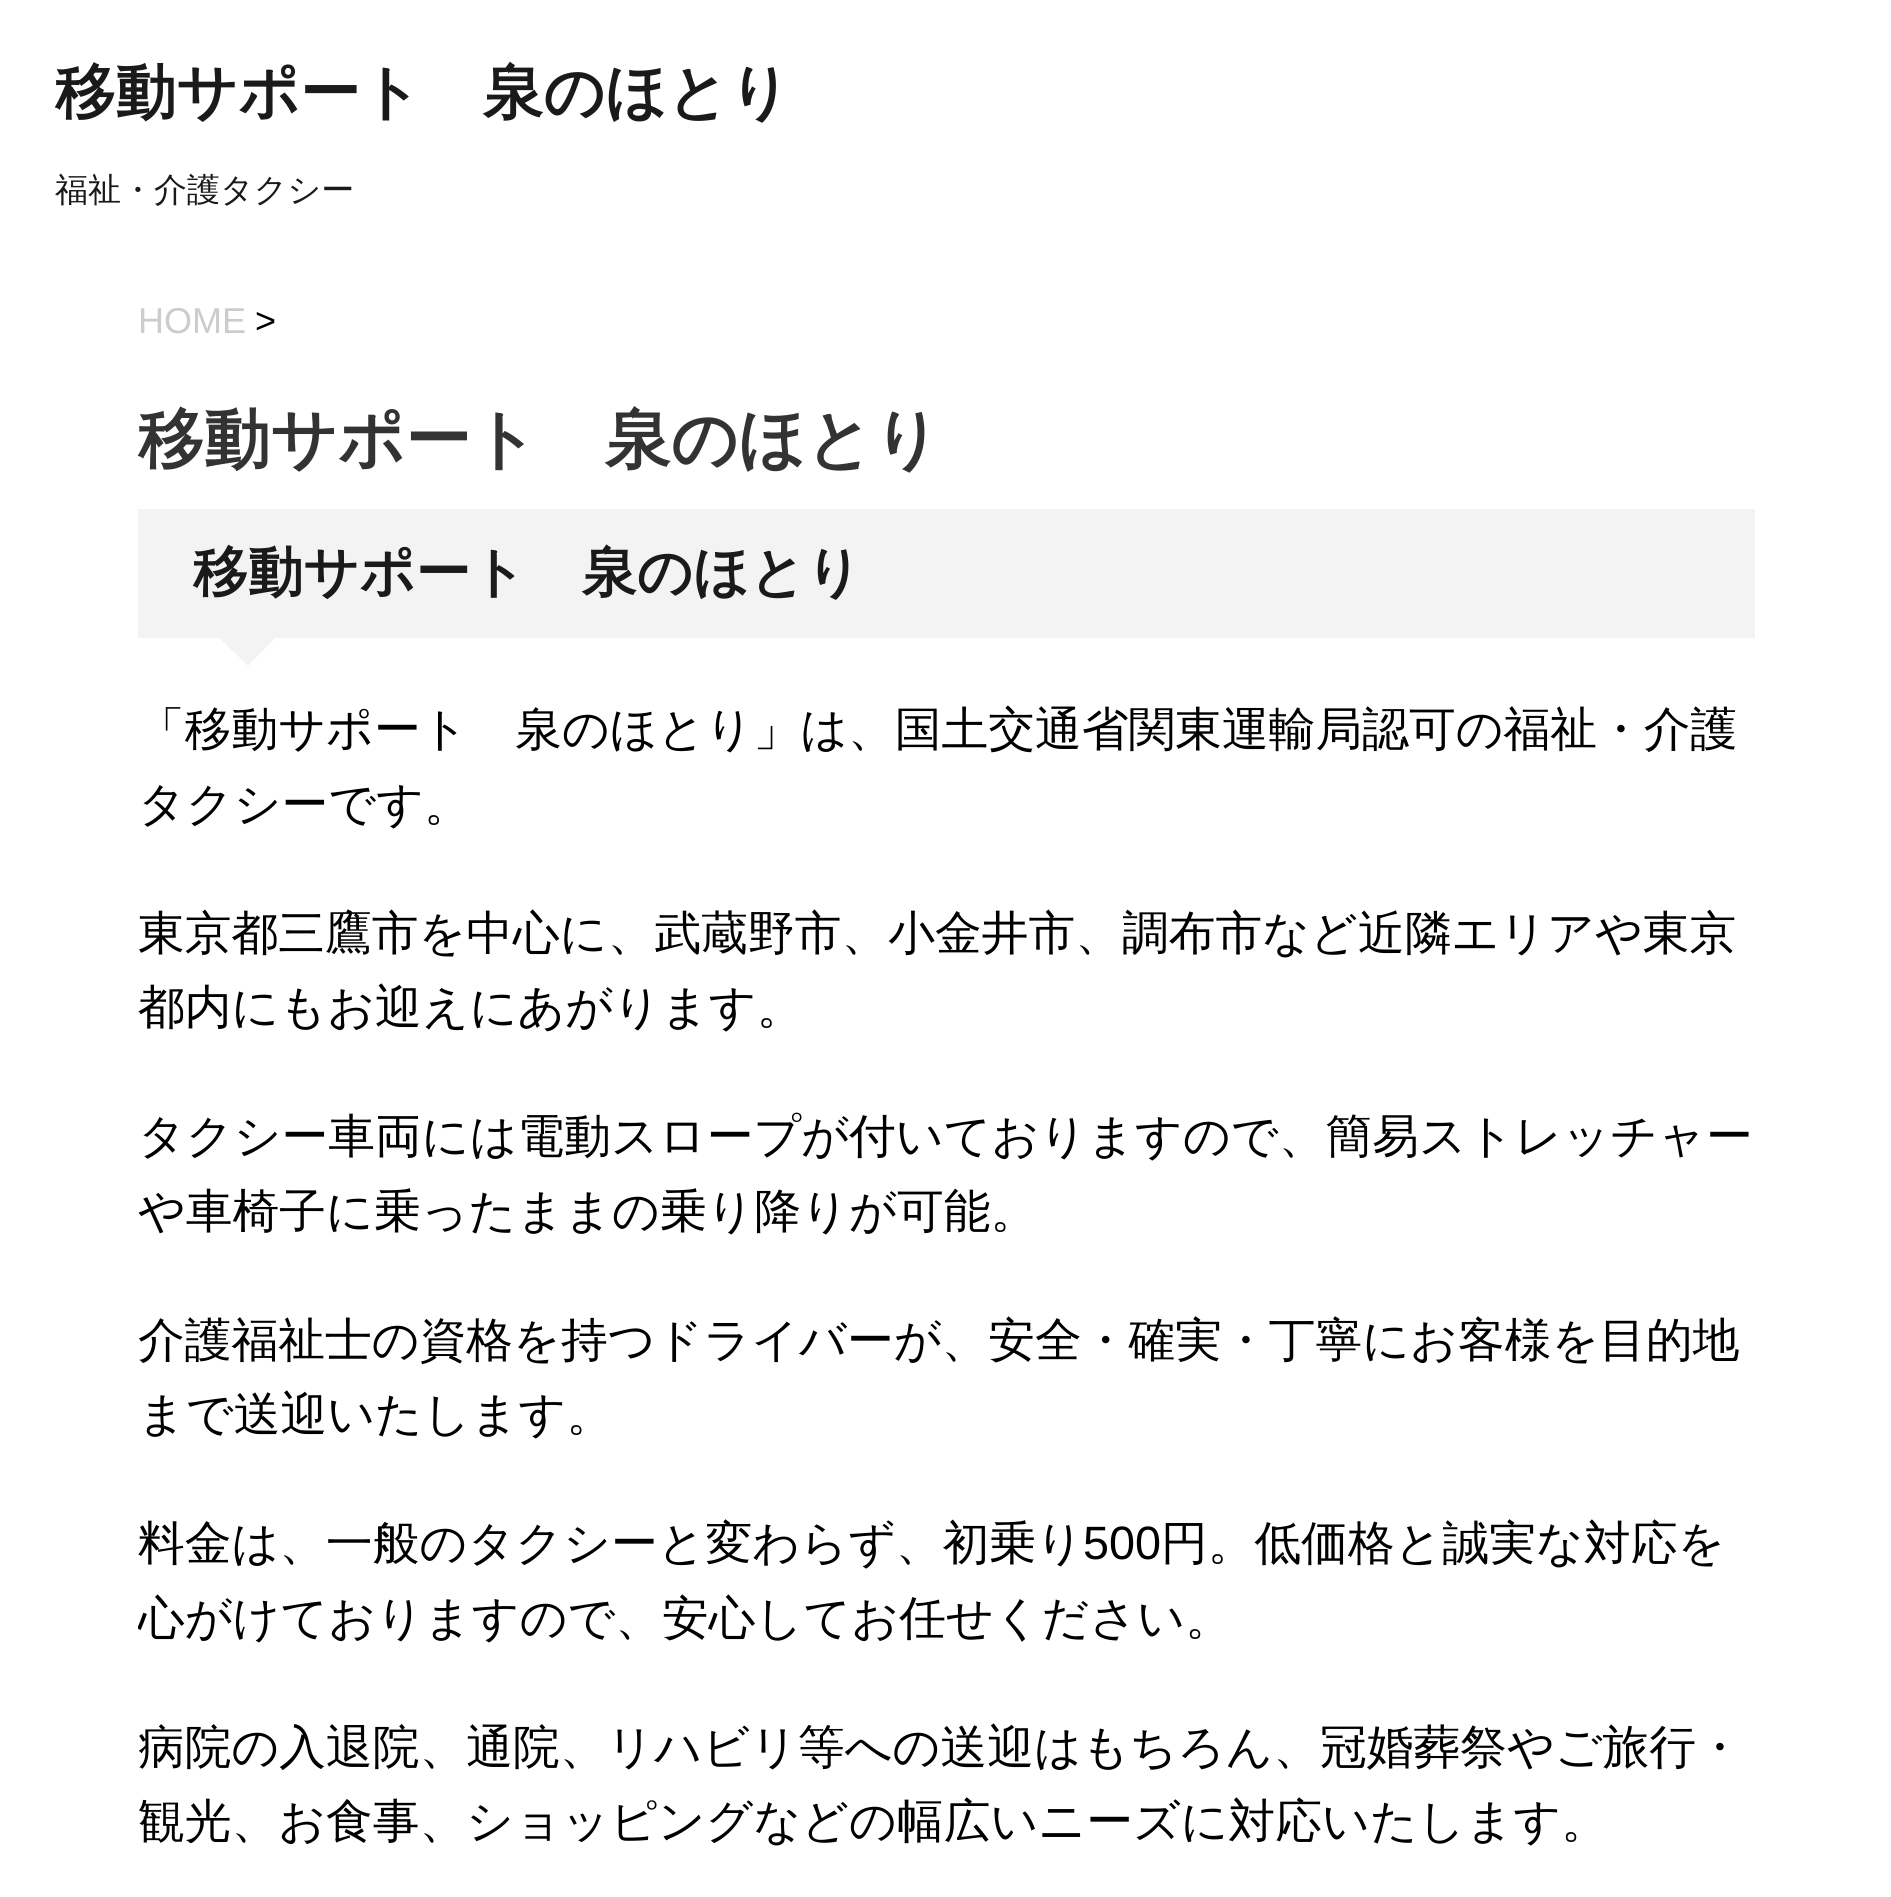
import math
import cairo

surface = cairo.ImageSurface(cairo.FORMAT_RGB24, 1891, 1897)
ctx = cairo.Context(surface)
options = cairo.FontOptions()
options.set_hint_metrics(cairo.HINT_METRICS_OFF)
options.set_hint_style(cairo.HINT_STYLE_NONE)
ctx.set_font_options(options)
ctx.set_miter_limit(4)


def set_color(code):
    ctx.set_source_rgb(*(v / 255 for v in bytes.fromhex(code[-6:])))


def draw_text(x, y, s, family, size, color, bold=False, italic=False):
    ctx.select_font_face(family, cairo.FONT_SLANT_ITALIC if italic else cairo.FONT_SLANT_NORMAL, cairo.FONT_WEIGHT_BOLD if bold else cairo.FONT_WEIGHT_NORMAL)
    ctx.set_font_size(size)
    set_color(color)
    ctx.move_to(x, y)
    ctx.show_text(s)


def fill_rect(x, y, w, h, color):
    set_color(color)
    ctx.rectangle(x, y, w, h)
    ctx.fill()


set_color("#ffffff")
ctx.paint()
draw_text(55, 113, "移動サポート　泉のほとり", "WenQuanYi Zen Hei", 60.5, "#1a1a1a", bold=True)
draw_text(55, 201, "福祉・介護タクシー", "WenQuanYi Zen Hei Medium", 33, "#1a1a1a")
draw_text(138, 333, "HOME", "Liberation Sans", 36, "#cccccc")
draw_text(255, 333, ">", "Liberation Sans", 36, "#000000")
draw_text(138, 462, "移動サポート　泉のほとり", "WenQuanYi Zen Hei", 66, "#333333", bold=True)
fill_rect(138, 509, 1617, 129, "#f3f3f3")
draw_text(193, 591, "移動サポート　泉のほとり", "WenQuanYi Zen Hei", 55, "#1a1a1a", bold=True)
set_color("#f3f3f3")
ctx.new_path()
ctx.move_to(220, 638)
ctx.line_to(275, 638)
ctx.line_to(248, 666)
ctx.close_path()
ctx.fill()
ctx.new_path()
ctx.move_to(226, 638)
ctx.curve_to(224, 638, 222, 638, 222, 640)
ctx.line_to(234, 652)
ctx.line_to(261, 652)
ctx.line_to(274, 639)
ctx.curve_to(273, 638, 271, 638, 270, 638)
ctx.close_path()
ctx.fill()
draw_text(138, 745, "「移動サポート　泉のほとり」は、国土交通省関東運輸局認可の福祉・介護", "WenQuanYi Zen Hei Medium", 46.75, "#000000")
draw_text(138, 820, "タクシーです。", "WenQuanYi Zen Hei Medium", 46.75, "#000000")
draw_text(138, 949, "東京都三鷹市を中心に、武蔵野市、小金井市、調布市など近隣エリアや東京", "WenQuanYi Zen Hei Medium", 46.75, "#000000")
draw_text(138, 1023, "都内にもお迎えにあがります。", "WenQuanYi Zen Hei Medium", 46.75, "#000000")
draw_text(138, 1152, "タクシー車両には電動スロープが付いておりますので、簡易ストレッチャー", "WenQuanYi Zen Hei Medium", 46.75, "#000000")
draw_text(138, 1227, "や車椅子に乗ったままの乗り降りが可能。", "WenQuanYi Zen Hei Medium", 46.75, "#000000")
draw_text(138, 1356, "介護福祉士の資格を持つドライバーが、安全・確実・丁寧にお客様を目的地", "WenQuanYi Zen Hei Medium", 46.75, "#000000")
draw_text(138, 1430, "まで送迎いたします。", "WenQuanYi Zen Hei Medium", 46.75, "#000000")
draw_text(138, 1559, "料金は、一般のタクシーと変わらず、初乗り", "WenQuanYi Zen Hei Medium", 46.75, "#000000")
draw_text(1083, 1559, "500", "Liberation Sans", 46.75, "#000000")
draw_text(1161, 1559, "円。低価格と誠実な対応を", "WenQuanYi Zen Hei Medium", 46.75, "#000000")
ctx.save()
ctx.rectangle(138, 300, 1617, 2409)
ctx.clip()
draw_text(138, 1634, "心がけておりますので、安心してお任せください。", "WenQuanYi Zen Hei Medium", 46.75, "#000000")
ctx.restore()
draw_text(138, 1763, "病院の入退院、通院、リハビリ等への送迎はもちろん、冠婚葬祭やご旅行・", "WenQuanYi Zen Hei Medium", 46.75, "#000000")
draw_text(138, 1837, "観光、お食事、ショッピングなどの幅広いニーズに対応いたします。", "WenQuanYi Zen Hei Medium", 46.75, "#000000")
surface.write_to_png("output.png")
